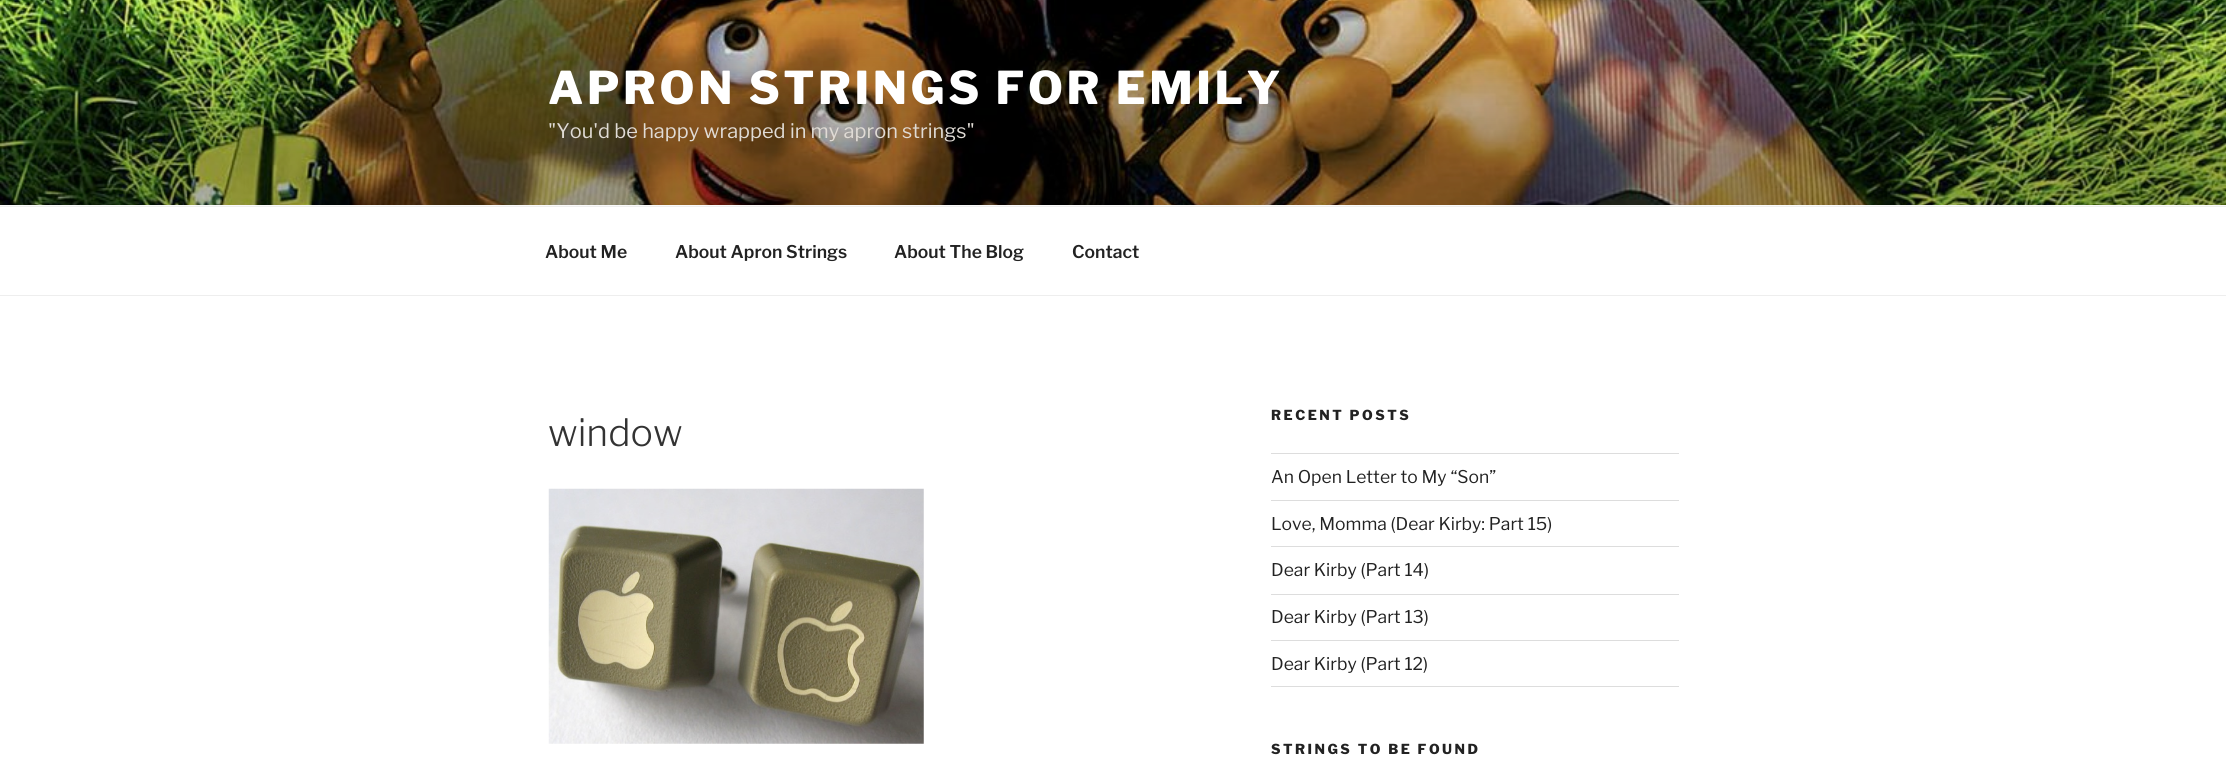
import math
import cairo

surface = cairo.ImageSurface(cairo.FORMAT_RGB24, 2226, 772)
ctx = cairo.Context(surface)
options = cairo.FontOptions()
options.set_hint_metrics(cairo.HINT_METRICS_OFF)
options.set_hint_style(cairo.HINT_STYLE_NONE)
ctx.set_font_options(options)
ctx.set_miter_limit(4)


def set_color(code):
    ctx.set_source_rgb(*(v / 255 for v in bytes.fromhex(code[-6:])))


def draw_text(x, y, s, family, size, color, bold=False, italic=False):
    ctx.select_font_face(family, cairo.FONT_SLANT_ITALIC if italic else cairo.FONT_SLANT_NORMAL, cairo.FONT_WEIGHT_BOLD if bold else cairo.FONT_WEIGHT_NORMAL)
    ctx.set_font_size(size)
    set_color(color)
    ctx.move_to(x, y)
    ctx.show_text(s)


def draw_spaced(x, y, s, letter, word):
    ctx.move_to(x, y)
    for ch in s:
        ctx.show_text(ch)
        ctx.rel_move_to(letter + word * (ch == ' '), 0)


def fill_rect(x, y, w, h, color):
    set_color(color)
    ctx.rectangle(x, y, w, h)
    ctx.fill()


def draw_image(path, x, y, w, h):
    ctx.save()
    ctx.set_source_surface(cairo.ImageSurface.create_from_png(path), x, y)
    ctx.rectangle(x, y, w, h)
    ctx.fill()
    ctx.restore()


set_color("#ffffff")
ctx.paint()
fill_rect(0, 205, 2226, 1, "#fafafa")
draw_image("assets/img1.png", 0, 0, 2226, 205)
ctx.select_font_face("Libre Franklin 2 Thin")
ctx.set_font_size(45)
set_color("#ffffff")
draw_spaced(548, 104, "APRON STRINGS FOR EMILY", 3.6, 0)
draw_text(548, 138, "\"You'd be happy wrapped in my apron strings\"", "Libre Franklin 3 Thin", 20, "#e0dbd5")
fill_rect(0, 206, 2226, 1, "#eeeeee")
fill_rect(0, 295, 2226, 1, "#eeeeee")
draw_text(545, 258, "About Me", "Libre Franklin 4 Thin", 17.5, "#222222")
draw_text(675, 258, "About Apron Strings", "Libre Franklin 4 Thin", 17.5, "#222222")
draw_text(894, 258, "About The Blog", "Libre Franklin 4 Thin", 17.5, "#222222")
draw_text(1072, 258, "Contact", "Libre Franklin 4 Thin", 17.5, "#222222")
draw_text(548, 446, "window", "Libre Franklin Thin", 37.5, "#333333")
draw_image("assets/img2.png", 548, 488, 376, 256)
ctx.select_font_face("Libre Franklin 2 Thin")
ctx.set_font_size(13.75)
set_color("#222222")
draw_spaced(1271, 420, "RECENT POSTS", 2.5, 0)
fill_rect(1271, 453, 408, 1, "#dddddd")
fill_rect(1271, 500, 408, 1, "#dddddd")
draw_text(1271, 483, "An Open Letter to My “Son”", "Libre Franklin 3 Thin", 17.5, "#222222")
fill_rect(1271, 546, 408, 1, "#dddddd")
draw_text(1271, 530, "Love, Momma (Dear Kirby: Part 15)", "Libre Franklin 3 Thin", 17.5, "#222222")
fill_rect(1271, 594, 408, 1, "#dddddd")
draw_text(1271, 576, "Dear Kirby (Part 14)", "Libre Franklin 3 Thin", 17.5, "#222222")
fill_rect(1271, 640, 408, 1, "#dddddd")
draw_text(1271, 623, "Dear Kirby (Part 13)", "Libre Franklin 3 Thin", 17.5, "#222222")
fill_rect(1271, 686, 408, 1, "#dddddd")
draw_text(1271, 670, "Dear Kirby (Part 12)", "Libre Franklin 3 Thin", 17.5, "#222222")
ctx.select_font_face("Libre Franklin 2 Thin")
ctx.set_font_size(13.75)
draw_spaced(1271, 754, "STRINGS TO BE FOUND", 2.5, 0)
surface.write_to_png("output.png")
